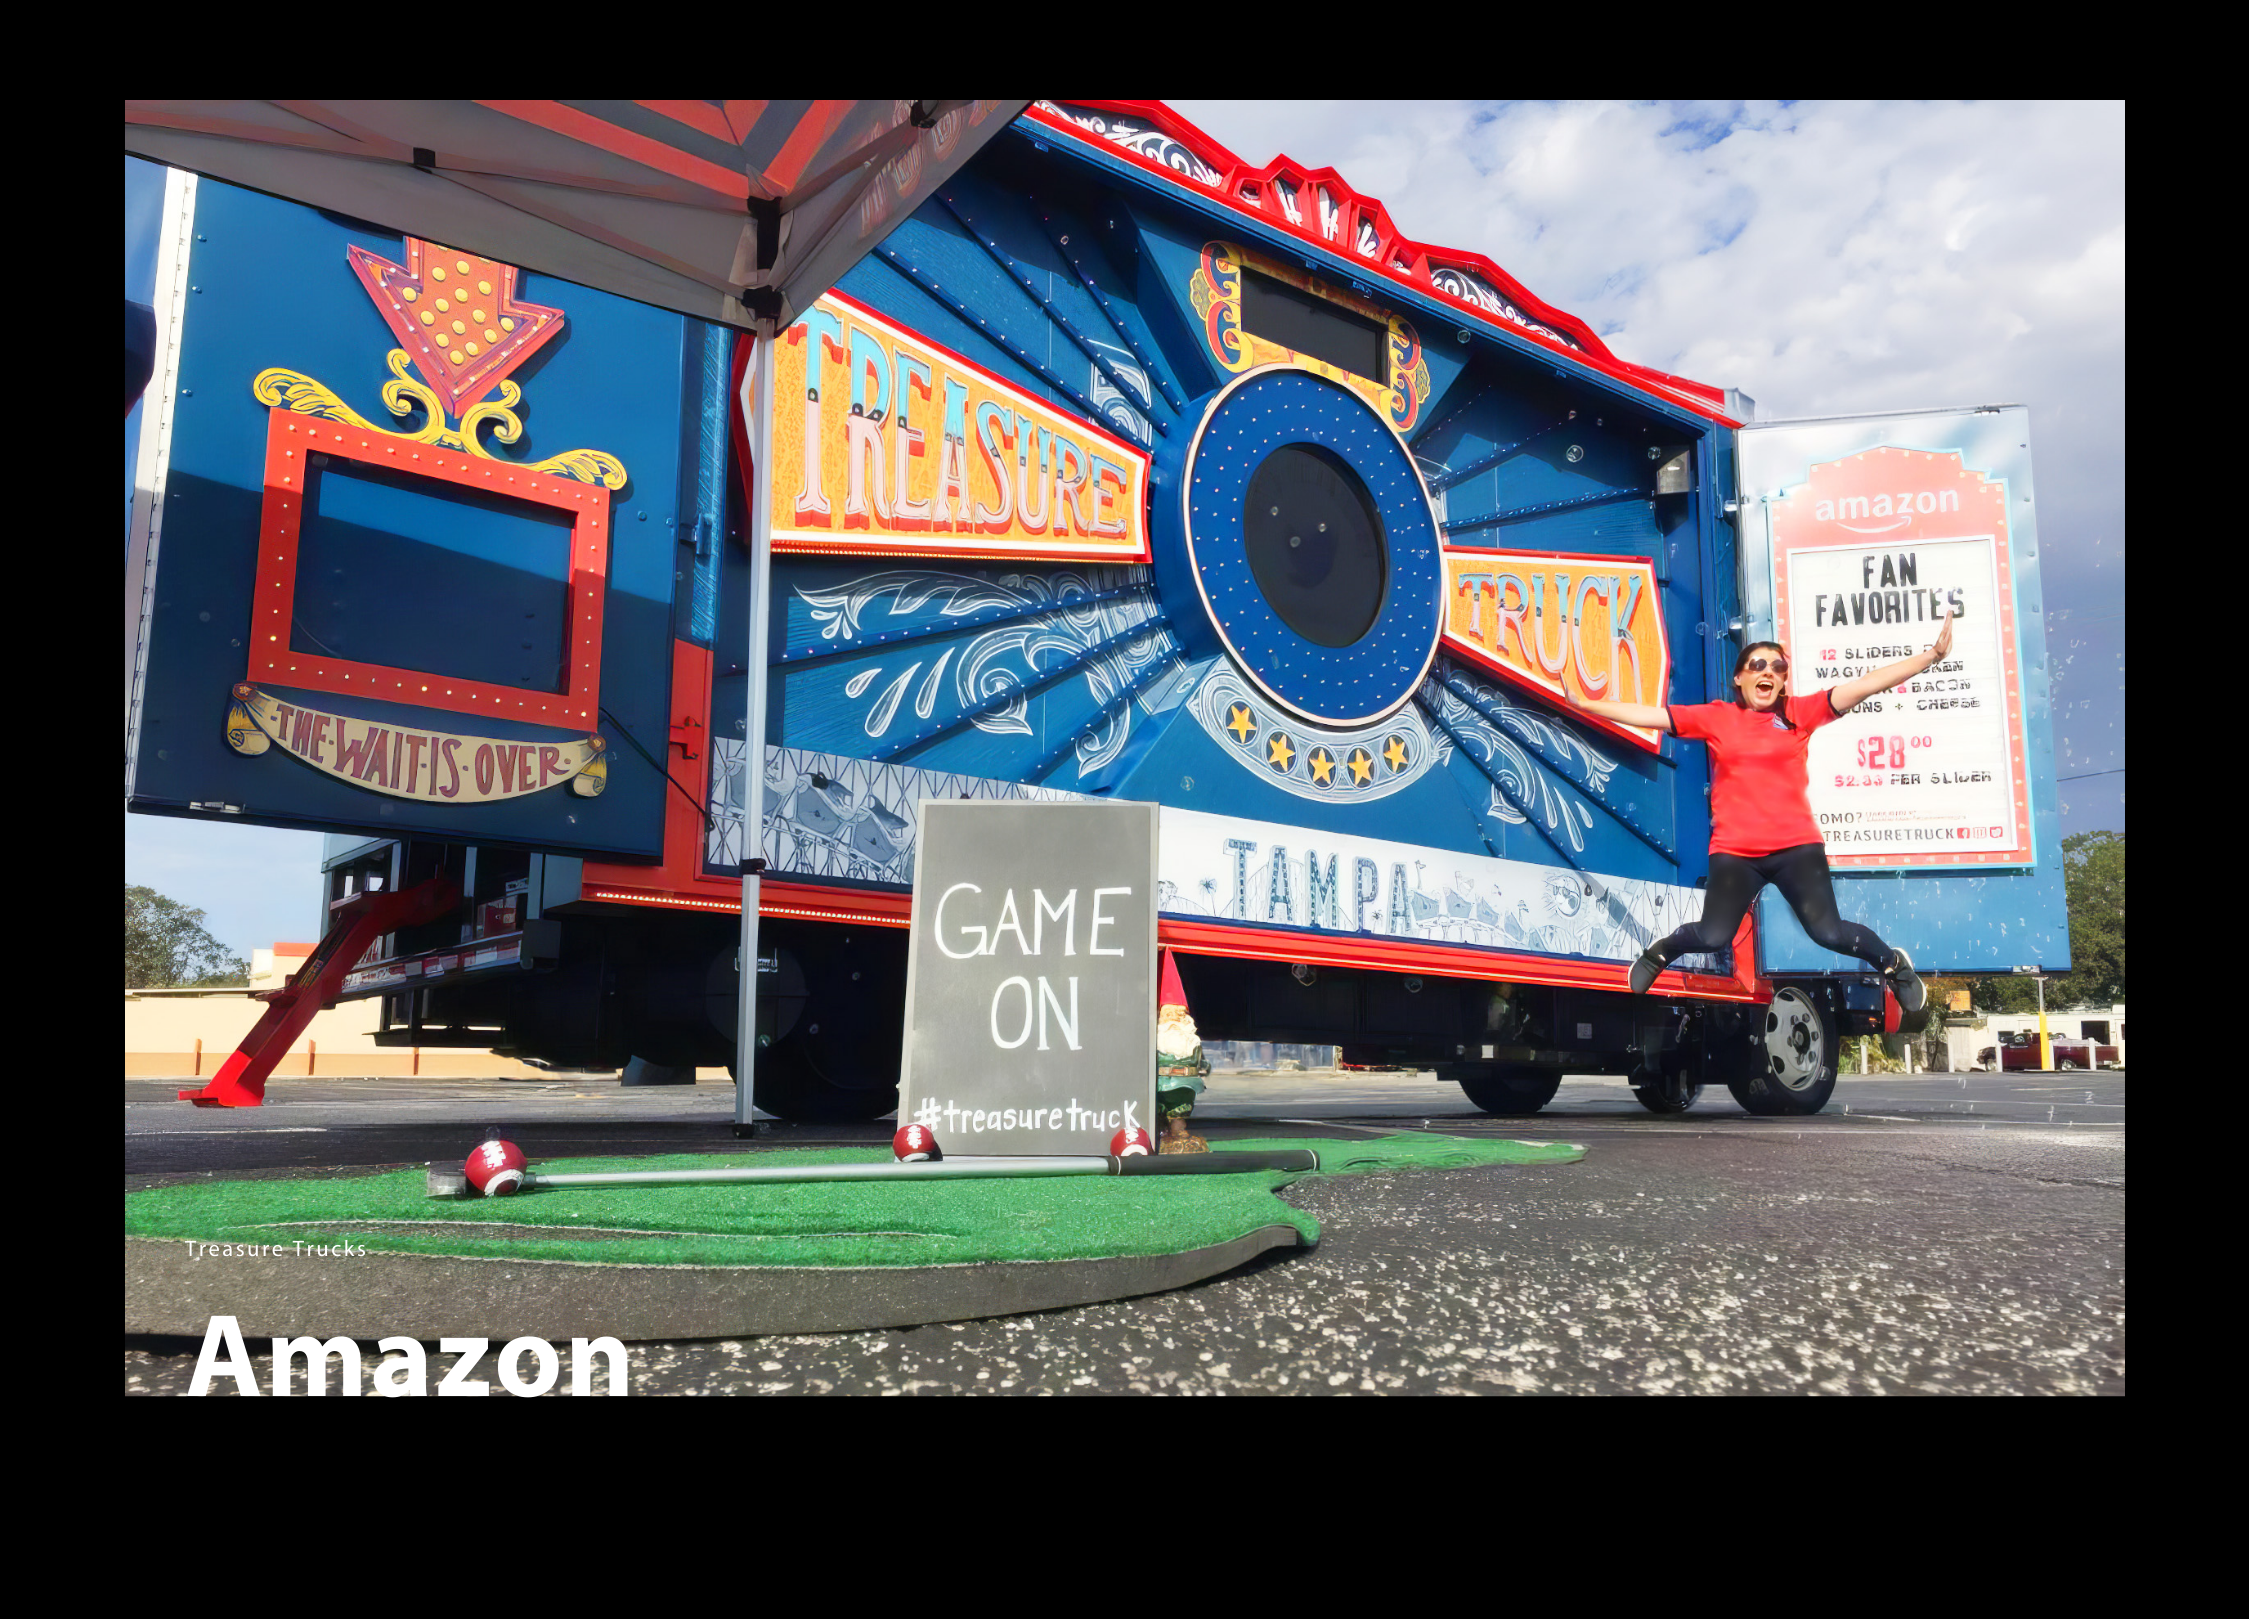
import math
import cairo

surface = cairo.ImageSurface(cairo.FORMAT_RGB24, 2249, 1619)
ctx = cairo.Context(surface)
options = cairo.FontOptions()
options.set_hint_metrics(cairo.HINT_METRICS_OFF)
options.set_hint_style(cairo.HINT_STYLE_NONE)
ctx.set_font_options(options)
ctx.set_miter_limit(4)


def set_color(code):
    ctx.set_source_rgb(*(v / 255 for v in bytes.fromhex(code[-6:])))


def draw_spaced(x, y, s, letter, word):
    ctx.move_to(x, y)
    for ch in s:
        ctx.show_text(ch)
        ctx.rel_move_to(letter + word * (ch == ' '), 0)


def draw_image(path, x, y, w, h):
    ctx.save()
    ctx.set_source_surface(cairo.ImageSurface.create_from_png(path), x, y)
    ctx.rectangle(x, y, w, h)
    ctx.fill()
    ctx.restore()


set_color("#000000")
ctx.paint()
draw_image("assets/img1.png", 125, 100, 2000, 1297)
ctx.select_font_face("Myriad")
ctx.set_font_size(22.5)
set_color("#ffffff")
draw_spaced(185, 1256, "Treasure Trucks", 2.5, 0)
ctx.select_font_face("Myriad", cairo.FONT_SLANT_NORMAL, cairo.FONT_WEIGHT_BOLD)
ctx.set_font_size(119)
draw_spaced(185, 1396, "Amazon", 2.5, 0)
surface.write_to_png("output.png")
